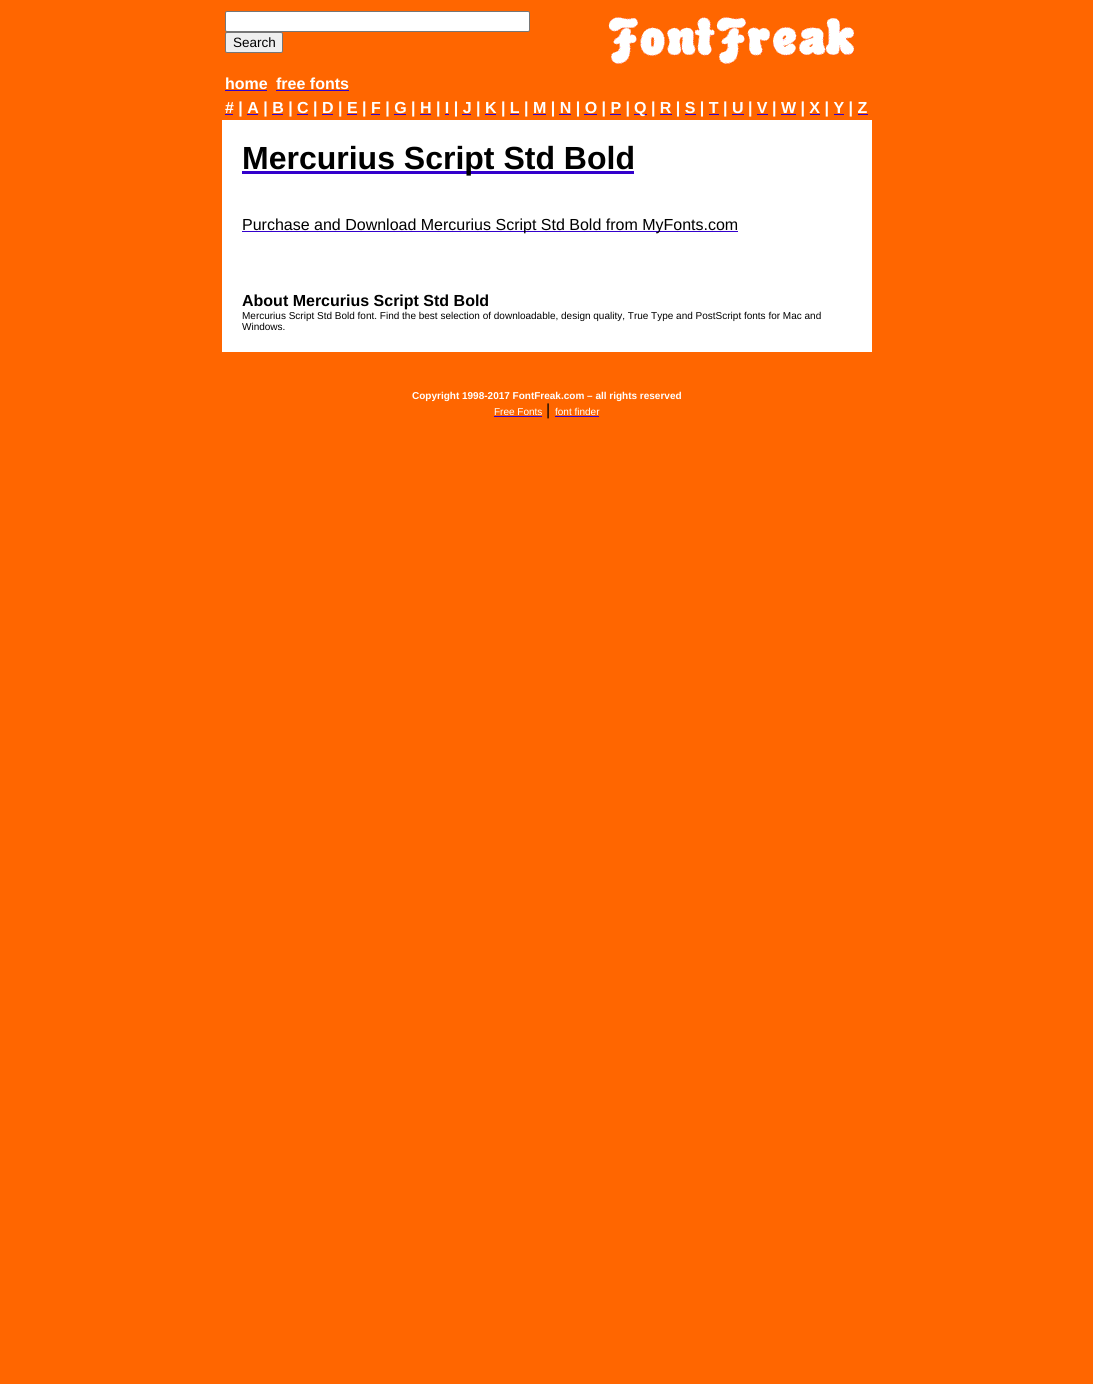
import math
import cairo

surface = cairo.ImageSurface(cairo.FORMAT_RGB24, 1093, 1384)
ctx = cairo.Context(surface)
options = cairo.FontOptions()
options.set_hint_metrics(cairo.HINT_METRICS_OFF)
options.set_hint_style(cairo.HINT_STYLE_NONE)
ctx.set_font_options(options)
ctx.set_miter_limit(4)


def set_color(code):
    ctx.set_source_rgb(*(v / 255 for v in bytes.fromhex(code[-6:])))


def draw_text(x, y, s, family, size, color, bold=False, italic=False):
    ctx.select_font_face(family, cairo.FONT_SLANT_ITALIC if italic else cairo.FONT_SLANT_NORMAL, cairo.FONT_WEIGHT_BOLD if bold else cairo.FONT_WEIGHT_NORMAL)
    ctx.set_font_size(size)
    set_color(color)
    ctx.move_to(x, y)
    ctx.show_text(s)


def fill_rect(x, y, w, h, color):
    set_color(color)
    ctx.rectangle(x, y, w, h)
    ctx.fill()


def rounded_rect(x, y, w, h, r):
    ctx.new_sub_path()
    for i, (u, v) in enumerate([(x + w - r, y + h - r), (x + r, y + h - r), (x + r, y + r), (x + w - r, y + r)]):
        ctx.arc(u, v, r, i * math.pi / 2, (i + 1) * math.pi / 2)
    ctx.close_path()


def draw_image(path, x, y, w, h):
    ctx.save()
    ctx.set_source_surface(cairo.ImageSurface.create_from_png(path), x, y)
    ctx.rectangle(x, y, w, h)
    ctx.fill()
    ctx.restore()


set_color("#ff6600")
ctx.paint()
set_color("#ffffff")
rounded_rect(225.5, 11.5, 304, 20, 1.5)
ctx.fill_preserve()
set_color("#767676")
ctx.set_line_width(1)
ctx.stroke()
set_color("#efefef")
rounded_rect(225.5, 32.5, 57, 20, 1.5)
ctx.fill_preserve()
set_color("#767676")
ctx.stroke()
draw_text(233, 47, "Search", "Liberation Sans", 13.5, "#000000")
draw_image("assets/img1.png", 608, 17, 246, 47)
draw_text(225, 89, "home", "Liberation Sans", 16, "#ffffff", bold=True)
fill_rect(225, 90, 42, 1, "#3300cc")
draw_text(276, 89, "free fonts", "Liberation Sans", 16, "#ffffff", bold=True)
fill_rect(276, 90, 73, 1, "#3300cc")
fill_rect(225, 114, 8, 1, "#3300cc")
draw_text(225, 113, "# | A | B | C | D | E | F | G | H | I | J | K | L | M | N | O | P |", "Liberation Sans", 16, "#ffffff", bold=True)
fill_rect(247, 114, 11, 1, "#3300cc")
fill_rect(272, 114, 11, 1, "#3300cc")
fill_rect(297, 114, 11, 1, "#3300cc")
fill_rect(322, 114, 11, 1, "#3300cc")
fill_rect(347, 114, 10, 1, "#3300cc")
fill_rect(371, 114, 9, 1, "#3300cc")
fill_rect(394, 114, 12, 1, "#3300cc")
fill_rect(420, 114, 11, 1, "#3300cc")
fill_rect(445, 114, 4, 1, "#3300cc")
fill_rect(462, 114, 9, 1, "#3300cc")
fill_rect(485, 114, 11, 1, "#3300cc")
fill_rect(510, 114, 9, 1, "#3300cc")
fill_rect(533, 114, 13, 1, "#3300cc")
fill_rect(559, 114, 12, 1, "#3300cc")
fill_rect(584, 114, 13, 1, "#3300cc")
fill_rect(610, 114, 11, 1, "#3300cc")
fill_rect(634, 114, 13, 1, "#3300cc")
draw_text(634, 113, "Q | R | S | T | U | V | W | X | Y | Z", "Liberation Sans", 16, "#ffffff", bold=True)
fill_rect(660, 114, 12, 1, "#3300cc")
fill_rect(685, 114, 11, 1, "#3300cc")
fill_rect(709, 114, 10, 1, "#3300cc")
fill_rect(732, 114, 12, 1, "#3300cc")
fill_rect(757, 114, 11, 1, "#3300cc")
fill_rect(781, 114, 15, 1, "#3300cc")
fill_rect(810, 114, 10, 1, "#3300cc")
fill_rect(834, 114, 10, 1, "#3300cc")
fill_rect(858, 114, 10, 1, "#3300cc")
fill_rect(222, 120, 650, 232, "#ffffff")
fill_rect(242, 171, 392, 3, "#3300cc")
draw_text(242, 169, "Mercurius Script Std Bold", "Liberation Sans", 32, "#000000", bold=True)
fill_rect(242, 231, 496, 1, "#3300cc")
draw_text(242, 230, "Purchase and Download Mercurius Script Std Bold from MyFonts.com", "Liberation Sans", 16, "#000000")
draw_text(242, 306, "About Mercurius Script Std Bold", "Liberation Sans", 16, "#000000", bold=True)
draw_text(242, 319, "Mercurius Script Std Bold font. Find the best selection of downloadable, design quality, True Type and PostScript fonts for Mac and", "Liberation Sans", 10, "#000000")
draw_text(242, 330, "Windows.", "Liberation Sans", 10, "#000000")
draw_text(412, 399, "Copyright 1998-2017 FontFreak.com – all rights reserved", "Liberation Sans", 10, "#ffffff", bold=True)
draw_text(494, 415, "Free Fonts", "Liberation Sans", 10, "#ffffff")
fill_rect(494, 416, 48, 1, "#3300cc")
draw_text(546, 415, "|", "Liberation Sans", 16, "#000000")
draw_text(555, 415, "font finder", "Liberation Sans", 10, "#ffffff")
fill_rect(555, 416, 44, 1, "#3300cc")
surface.write_to_png("output.png")
